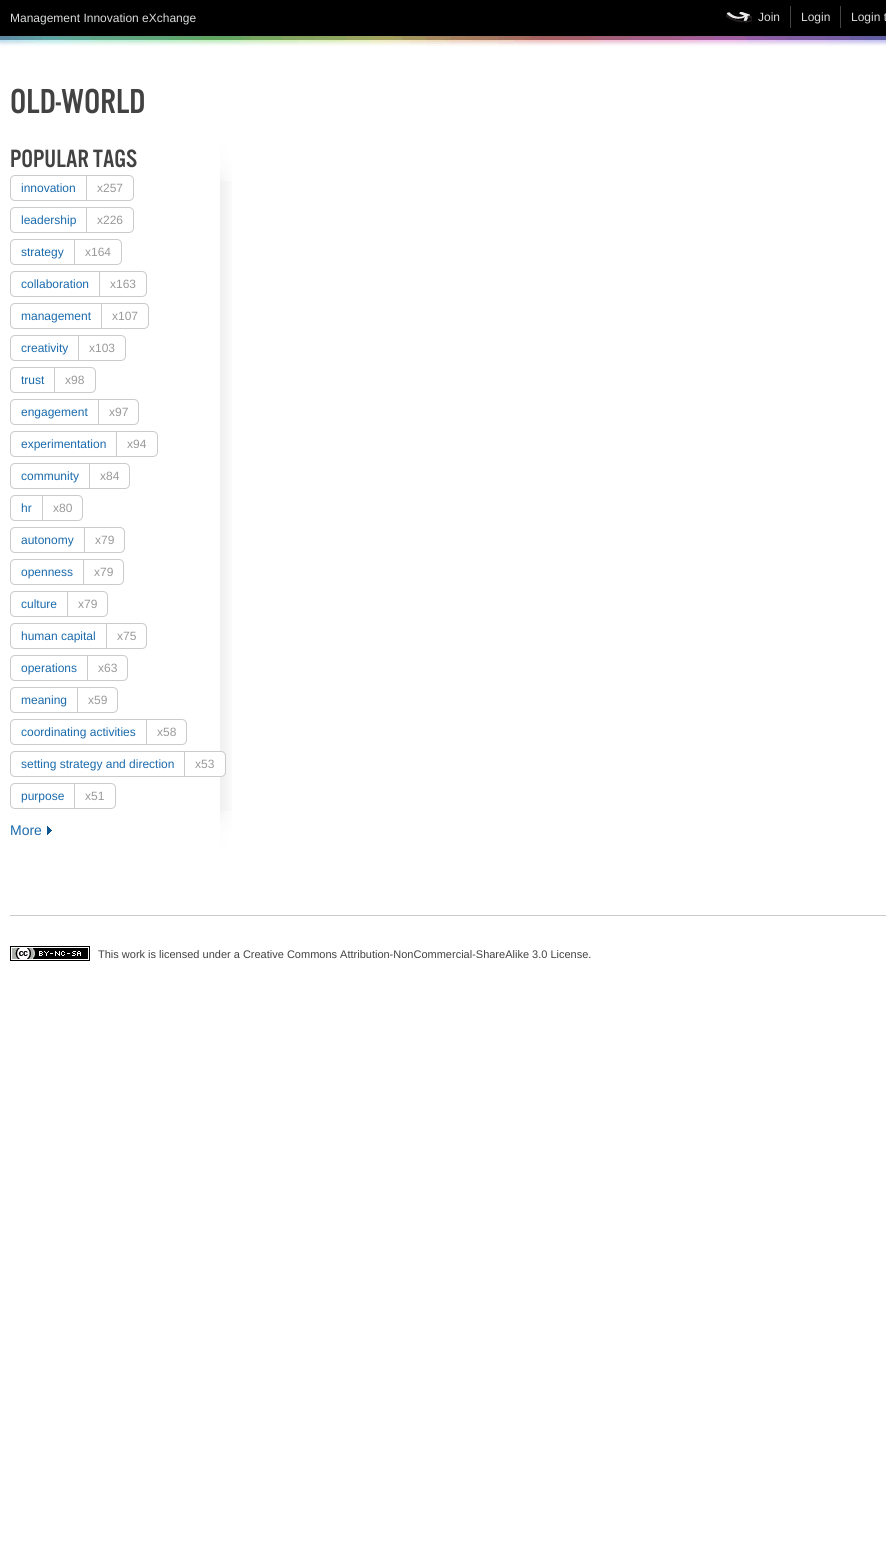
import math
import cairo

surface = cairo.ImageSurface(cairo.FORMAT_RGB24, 886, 1560)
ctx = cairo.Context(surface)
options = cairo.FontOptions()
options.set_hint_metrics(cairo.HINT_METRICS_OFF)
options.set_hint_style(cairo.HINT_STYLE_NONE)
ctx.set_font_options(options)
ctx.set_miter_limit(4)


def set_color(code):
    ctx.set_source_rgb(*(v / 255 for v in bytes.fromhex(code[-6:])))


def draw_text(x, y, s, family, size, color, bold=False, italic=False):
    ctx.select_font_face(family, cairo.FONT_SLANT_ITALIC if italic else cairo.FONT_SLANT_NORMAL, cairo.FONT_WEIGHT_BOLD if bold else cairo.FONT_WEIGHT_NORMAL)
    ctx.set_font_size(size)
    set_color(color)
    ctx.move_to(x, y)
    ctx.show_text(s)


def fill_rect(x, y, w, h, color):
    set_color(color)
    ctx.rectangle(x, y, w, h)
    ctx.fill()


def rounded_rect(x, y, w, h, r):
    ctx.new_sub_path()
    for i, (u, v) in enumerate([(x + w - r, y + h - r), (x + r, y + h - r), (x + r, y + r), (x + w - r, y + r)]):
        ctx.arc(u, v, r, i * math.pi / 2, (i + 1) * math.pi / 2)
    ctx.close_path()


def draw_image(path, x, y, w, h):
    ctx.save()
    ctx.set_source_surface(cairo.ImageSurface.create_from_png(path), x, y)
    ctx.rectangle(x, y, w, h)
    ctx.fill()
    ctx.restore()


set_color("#ffffff")
ctx.paint()
draw_image("assets/img1.png", 0, 36, 886, 10)
fill_rect(0, 0, 886, 36, "#000000")
draw_text(10, 22, "Management Innovation eXchange", "Liberation Sans", 12, "#dadbdc")
draw_image("assets/img2.png", 726, 12, 26, 12)
draw_text(758, 21, "Join", "Liberation Sans", 12, "#dadbdc")
fill_rect(790, 6, 1, 22, "#444444")
draw_text(801, 21, "Login", "Liberation Sans", 12, "#dadbdc")
fill_rect(840, 6, 1, 22, "#444444")
draw_text(851, 21, "Login t", "Liberation Sans", 12, "#dadbdc")
draw_text(10, 113, "OLD-WORLD", "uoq", 36, "#424242")
draw_image("assets/img3.png", 220, 181, 12, 630)
draw_image("assets/img4.png", 220, 132, 12, 49)
draw_image("assets/img5.png", 220, 811, 12, 49)
draw_text(10, 167, "POPULAR TAGS", "uoq", 26, "#424242")
rounded_rect(10.5, 175.5, 123, 25, 4.5)
set_color("#cbcbcb")
ctx.set_line_width(1)
ctx.stroke()
draw_text(21, 192, "innovation", "Liberation Sans", 12, "#1a6aac")
fill_rect(86, 176, 1, 24, "#cbcbcb")
draw_text(97, 192, "x257", "Liberation Sans", 12, "#999999")
rounded_rect(10.5, 207.5, 123, 25, 4.5)
set_color("#cbcbcb")
ctx.stroke()
draw_text(21, 224, "leadership", "Liberation Sans", 12, "#1a6aac")
fill_rect(86, 208, 1, 24, "#cbcbcb")
draw_text(97, 224, "x226", "Liberation Sans", 12, "#999999")
rounded_rect(10.5, 239.5, 111, 25, 4.5)
set_color("#cbcbcb")
ctx.stroke()
draw_text(21, 256, "strategy", "Liberation Sans", 12, "#1a6aac")
fill_rect(74, 240, 1, 24, "#cbcbcb")
draw_text(85, 256, "x164", "Liberation Sans", 12, "#999999")
rounded_rect(10.5, 271.5, 136, 25, 4.5)
set_color("#cbcbcb")
ctx.stroke()
draw_text(21, 288, "collaboration", "Liberation Sans", 12, "#1a6aac")
fill_rect(99, 272, 1, 24, "#cbcbcb")
draw_text(110, 288, "x163", "Liberation Sans", 12, "#999999")
rounded_rect(10.5, 303.5, 138, 25, 4.5)
set_color("#cbcbcb")
ctx.stroke()
draw_text(21, 320, "management", "Liberation Sans", 12, "#1a6aac")
fill_rect(101, 304, 1, 24, "#cbcbcb")
draw_text(112, 320, "x107", "Liberation Sans", 12, "#999999")
rounded_rect(10.5, 335.5, 115, 25, 4.5)
set_color("#cbcbcb")
ctx.stroke()
draw_text(21, 352, "creativity", "Liberation Sans", 12, "#1a6aac")
fill_rect(78, 336, 1, 24, "#cbcbcb")
draw_text(89, 352, "x103", "Liberation Sans", 12, "#999999")
rounded_rect(10.5, 367.5, 85, 25, 4.5)
set_color("#cbcbcb")
ctx.stroke()
draw_text(21, 384, "trust", "Liberation Sans", 12, "#1a6aac")
fill_rect(54, 368, 1, 24, "#cbcbcb")
draw_text(65, 384, "x98", "Liberation Sans", 12, "#999999")
rounded_rect(10.5, 399.5, 128, 25, 4.5)
set_color("#cbcbcb")
ctx.stroke()
draw_text(21, 416, "engagement", "Liberation Sans", 12, "#1a6aac")
fill_rect(98, 400, 1, 24, "#cbcbcb")
draw_text(109, 416, "x97", "Liberation Sans", 12, "#999999")
rounded_rect(10.5, 431.5, 147, 25, 4.5)
set_color("#cbcbcb")
ctx.stroke()
draw_text(21, 448, "experimentation", "Liberation Sans", 12, "#1a6aac")
fill_rect(116, 432, 1, 24, "#cbcbcb")
draw_text(127, 448, "x94", "Liberation Sans", 12, "#999999")
rounded_rect(10.5, 463.5, 119, 25, 4.5)
set_color("#cbcbcb")
ctx.stroke()
draw_text(21, 480, "community", "Liberation Sans", 12, "#1a6aac")
fill_rect(89, 464, 1, 24, "#cbcbcb")
draw_text(100, 480, "x84", "Liberation Sans", 12, "#999999")
rounded_rect(10.5, 495.5, 72, 25, 4.5)
set_color("#cbcbcb")
ctx.stroke()
draw_text(21, 512, "hr", "Liberation Sans", 12, "#1a6aac")
fill_rect(42, 496, 1, 24, "#cbcbcb")
draw_text(53, 512, "x80", "Liberation Sans", 12, "#999999")
rounded_rect(10.5, 527.5, 114, 25, 4.5)
set_color("#cbcbcb")
ctx.stroke()
draw_text(21, 544, "autonomy", "Liberation Sans", 12, "#1a6aac")
fill_rect(84, 528, 1, 24, "#cbcbcb")
draw_text(95, 544, "x79", "Liberation Sans", 12, "#999999")
rounded_rect(10.5, 559.5, 113, 25, 4.5)
set_color("#cbcbcb")
ctx.stroke()
draw_text(21, 576, "openness", "Liberation Sans", 12, "#1a6aac")
fill_rect(83, 560, 1, 24, "#cbcbcb")
draw_text(94, 576, "x79", "Liberation Sans", 12, "#999999")
rounded_rect(10.5, 591.5, 97, 25, 4.5)
set_color("#cbcbcb")
ctx.stroke()
draw_text(21, 608, "culture", "Liberation Sans", 12, "#1a6aac")
fill_rect(67, 592, 1, 24, "#cbcbcb")
draw_text(78, 608, "x79", "Liberation Sans", 12, "#999999")
rounded_rect(10.5, 623.5, 136, 25, 4.5)
set_color("#cbcbcb")
ctx.stroke()
draw_text(21, 640, "human capital", "Liberation Sans", 12, "#1a6aac")
fill_rect(106, 624, 1, 24, "#cbcbcb")
draw_text(117, 640, "x75", "Liberation Sans", 12, "#999999")
rounded_rect(10.5, 655.5, 117, 25, 4.5)
set_color("#cbcbcb")
ctx.stroke()
draw_text(21, 672, "operations", "Liberation Sans", 12, "#1a6aac")
fill_rect(87, 656, 1, 24, "#cbcbcb")
draw_text(98, 672, "x63", "Liberation Sans", 12, "#999999")
rounded_rect(10.5, 687.5, 107, 25, 4.5)
set_color("#cbcbcb")
ctx.stroke()
draw_text(21, 704, "meaning", "Liberation Sans", 12, "#1a6aac")
fill_rect(77, 688, 1, 24, "#cbcbcb")
draw_text(88, 704, "x59", "Liberation Sans", 12, "#999999")
rounded_rect(10.5, 719.5, 176, 25, 4.5)
set_color("#cbcbcb")
ctx.stroke()
draw_text(21, 736, "coordinating activities", "Liberation Sans", 12, "#1a6aac")
fill_rect(146, 720, 1, 24, "#cbcbcb")
draw_text(157, 736, "x58", "Liberation Sans", 12, "#999999")
set_color("#ffffff")
rounded_rect(10.5, 751.5, 215, 25, 4.5)
ctx.fill_preserve()
set_color("#cbcbcb")
ctx.stroke()
draw_text(21, 768, "setting strategy and direction", "Liberation Sans", 12, "#1a6aac")
fill_rect(184, 752, 1, 24, "#cbcbcb")
draw_text(195, 768, "x53", "Liberation Sans", 12, "#999999")
rounded_rect(10.5, 783.5, 105, 25, 4.5)
set_color("#cbcbcb")
ctx.stroke()
draw_text(21, 800, "purpose", "Liberation Sans", 12, "#1a6aac")
fill_rect(74, 784, 1, 24, "#cbcbcb")
draw_text(85, 800, "x51", "Liberation Sans", 12, "#999999")
draw_text(10, 835, "More", "Liberation Sans", 14, "#1a6aac")
draw_image("assets/img6.png", 47, 826, 5, 9)
fill_rect(10, 915, 876, 1, "#cbcbcb")
draw_image("assets/img7.png", 10, 946, 80, 15)
draw_text(98, 958, "This work is licensed under a Creative Commons Attribution-NonCommercial-ShareAlike 3.0 License.", "Liberation Sans", 11, "#424242")
surface.write_to_png("output.png")
